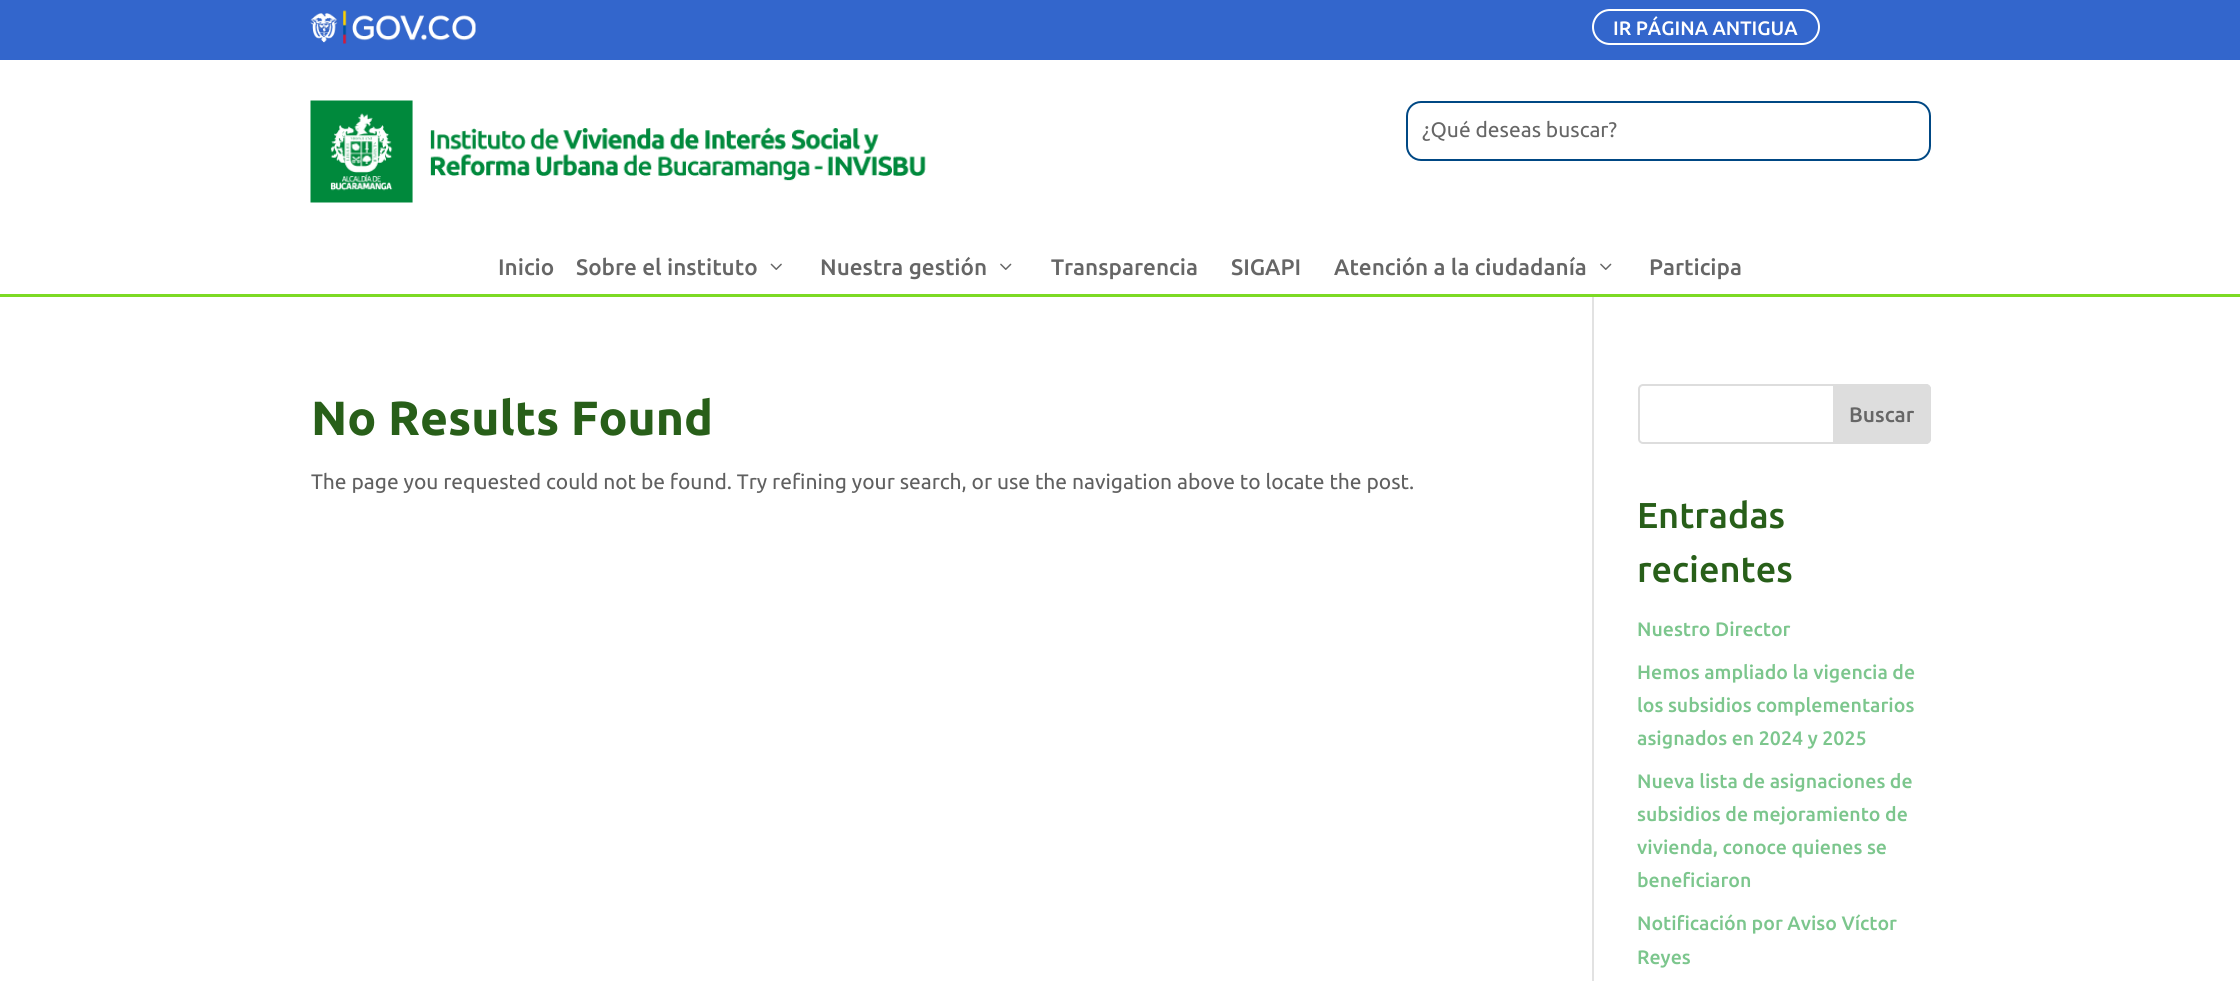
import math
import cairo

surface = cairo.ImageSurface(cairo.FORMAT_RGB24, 2240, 981)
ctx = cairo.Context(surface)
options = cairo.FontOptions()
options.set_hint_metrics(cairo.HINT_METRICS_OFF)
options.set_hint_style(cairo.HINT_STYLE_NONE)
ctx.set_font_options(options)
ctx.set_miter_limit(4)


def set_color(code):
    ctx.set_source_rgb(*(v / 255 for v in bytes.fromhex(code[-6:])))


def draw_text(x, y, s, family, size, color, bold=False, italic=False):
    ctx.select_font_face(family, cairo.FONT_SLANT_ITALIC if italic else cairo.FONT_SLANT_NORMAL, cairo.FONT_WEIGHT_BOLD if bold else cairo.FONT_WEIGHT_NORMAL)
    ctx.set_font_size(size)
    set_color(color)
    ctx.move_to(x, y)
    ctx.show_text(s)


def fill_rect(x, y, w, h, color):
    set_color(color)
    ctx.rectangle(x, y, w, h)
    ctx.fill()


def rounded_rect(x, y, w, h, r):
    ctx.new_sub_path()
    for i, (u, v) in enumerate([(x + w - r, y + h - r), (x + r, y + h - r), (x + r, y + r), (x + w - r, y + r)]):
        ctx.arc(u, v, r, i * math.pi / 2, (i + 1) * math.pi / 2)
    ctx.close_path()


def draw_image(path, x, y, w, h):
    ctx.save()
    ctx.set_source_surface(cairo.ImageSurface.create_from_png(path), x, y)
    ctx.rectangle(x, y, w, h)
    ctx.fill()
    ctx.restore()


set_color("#ffffff")
ctx.paint()
fill_rect(0, 0, 2240, 60, "#3366cc")
draw_image("assets/img1.png", 310, 10, 166, 34)
rounded_rect(1593, 10, 226, 34, 17)
set_color("#ffffff")
ctx.stroke()
draw_text(1613, 35, "IR PÁGINA ANTIGUA", "Ubuntu Medium", 19.5, "#ffffff")
fill_rect(0, 294, 2240, 3, "#7cda24")
draw_image("assets/img2.png", 310, 100, 616, 103)
rounded_rect(1407, 102, 523, 58, 14)
set_color("#004884")
ctx.stroke()
draw_text(1422, 137, "¿Qué deseas buscar?", "Ubuntu", 21, "#666666")
draw_text(498, 275, "Inicio", "Ubuntu Medium", 22.5, "#666666")
draw_text(576, 275, "Sobre el instituto", "Ubuntu Medium", 22.5, "#666666")
draw_image("assets/img3.png", 770, 263, 12, 7)
draw_text(820, 275, "Nuestra gestión", "Ubuntu Medium", 22.5, "#666666")
draw_image("assets/img4.png", 1000, 263, 12, 7)
draw_text(1051, 275, "Transparencia", "Ubuntu Medium", 22.5, "#666666")
draw_text(1231, 275, "SIGAPI", "Ubuntu Medium", 22.5, "#666666")
draw_text(1334, 275, "Atención a la ciudadanía", "Ubuntu Medium", 22.5, "#666666")
draw_image("assets/img4.png", 1600, 263, 12, 7)
draw_text(1649, 275, "Participa", "Ubuntu Medium", 22.5, "#666666")
fill_rect(1592, 297, 2, 684, "#e2e2e2")
draw_text(311, 435, "No Results Found", "Ubuntu", 48, "#285f19", bold=True)
draw_text(311, 489, "The page you requested could not be found. Try refining your search, or use the navigation above to locate the post.", "Ubuntu", 21, "#606060")
rounded_rect(1639, 385, 291, 58, 4)
set_color("#dddddd")
ctx.stroke()
ctx.new_path()
ctx.move_to(1834, 385)
ctx.line_to(1926, 385)
ctx.curve_to(1928, 385, 1930, 387, 1930, 389)
ctx.line_to(1930, 439)
ctx.curve_to(1930, 441, 1928, 443, 1926, 443)
ctx.line_to(1834, 443)
ctx.close_path()
ctx.fill_preserve()
ctx.stroke()
draw_text(1849, 422, "Buscar", "Ubuntu Medium", 21, "#666666")
draw_text(1637, 528, "Entradas", "Ubuntu Medium", 36, "#285f19")
draw_text(1637, 582, "recientes", "Ubuntu Medium", 36, "#285f19")
draw_text(1637, 636, "Nuestro Director", "Ubuntu Medium", 19.5, "#7cc68d")
draw_text(1637, 679, "Hemos ampliado la vigencia de", "Ubuntu Medium", 19.5, "#7cc68d")
draw_text(1637, 712, "los subsidios complementarios", "Ubuntu Medium", 19.5, "#7cc68d")
draw_text(1637, 745, "asignados en 2024 y 2025", "Ubuntu Medium", 19.5, "#7cc68d")
draw_text(1637, 788, "Nueva lista de asignaciones de", "Ubuntu Medium", 19.5, "#7cc68d")
draw_text(1637, 821, "subsidios de mejoramiento de", "Ubuntu Medium", 19.5, "#7cc68d")
draw_text(1637, 854, "vivienda, conoce quienes se", "Ubuntu Medium", 19.5, "#7cc68d")
draw_text(1637, 887, "beneficiaron", "Ubuntu Medium", 19.5, "#7cc68d")
draw_text(1637, 930, "Notificación por Aviso Víctor", "Ubuntu Medium", 19.5, "#7cc68d")
draw_text(1637, 964, "Reyes", "Ubuntu Medium", 19.5, "#7cc68d")
surface.write_to_png("output.png")
